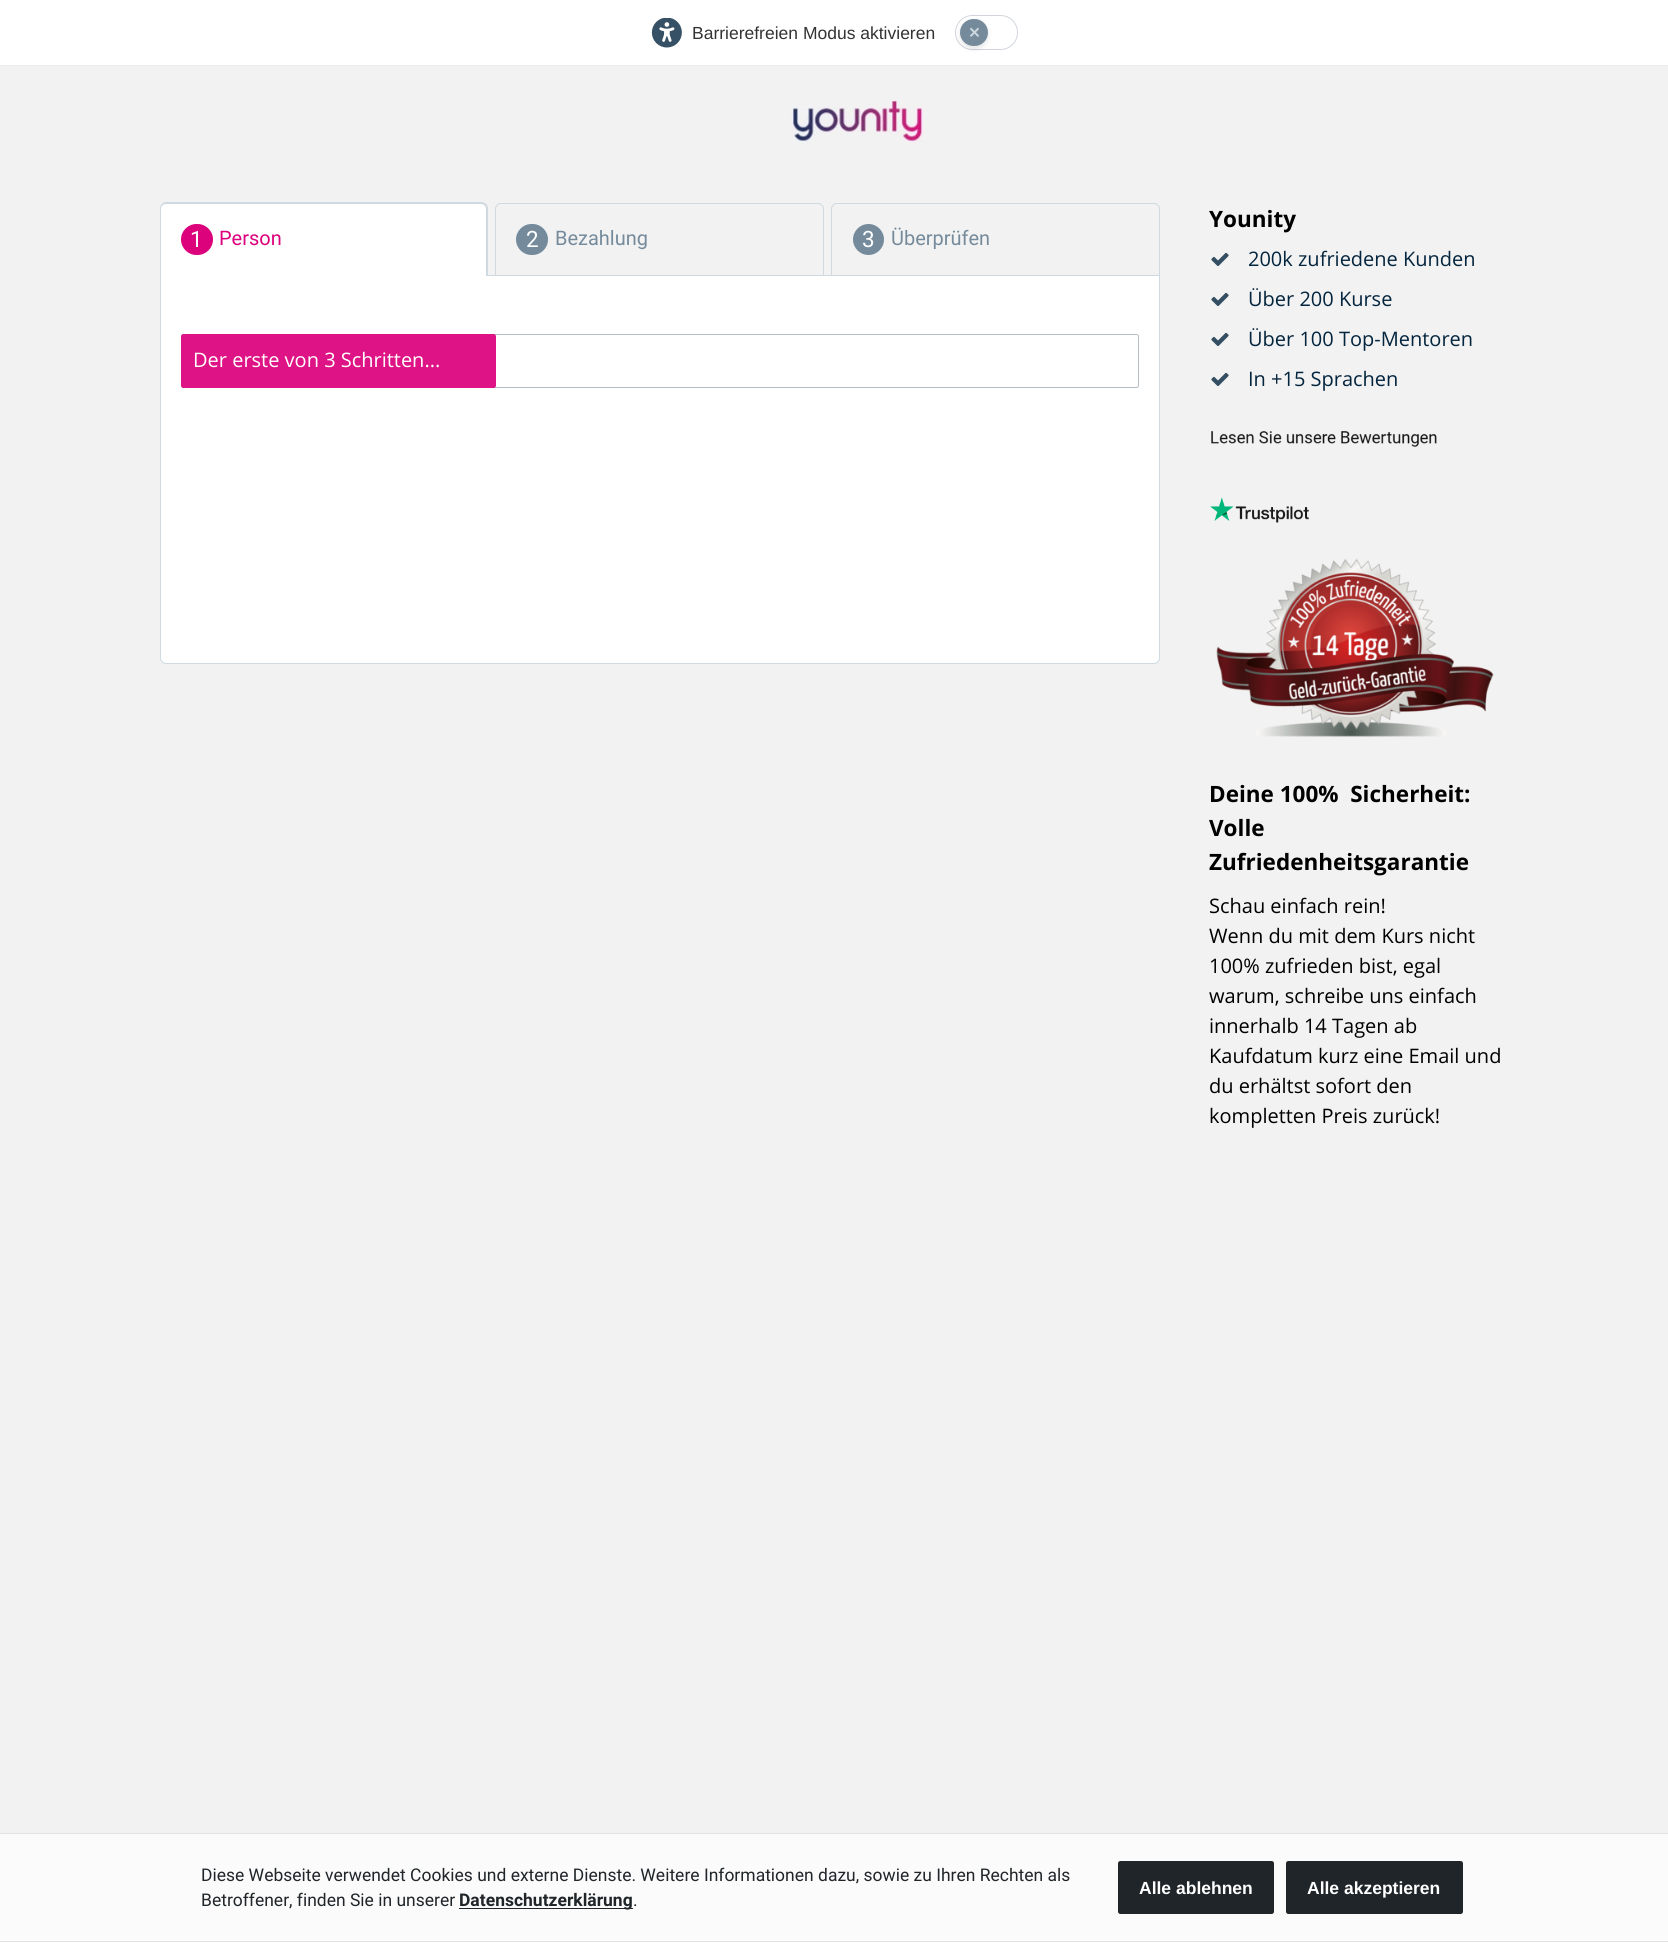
import math
import cairo

surface = cairo.ImageSurface(cairo.FORMAT_RGB24, 1668, 1942)
ctx = cairo.Context(surface)
options = cairo.FontOptions()
options.set_hint_metrics(cairo.HINT_METRICS_OFF)
options.set_hint_style(cairo.HINT_STYLE_NONE)
ctx.set_font_options(options)
ctx.set_miter_limit(4)


def set_color(code):
    ctx.set_source_rgb(*(v / 255 for v in bytes.fromhex(code[-6:])))


def draw_text(x, y, s, family, size, color, bold=False, italic=False):
    ctx.select_font_face(family, cairo.FONT_SLANT_ITALIC if italic else cairo.FONT_SLANT_NORMAL, cairo.FONT_WEIGHT_BOLD if bold else cairo.FONT_WEIGHT_NORMAL)
    ctx.set_font_size(size)
    set_color(color)
    ctx.move_to(x, y)
    ctx.show_text(s)


def fill_rect(x, y, w, h, color):
    set_color(color)
    ctx.rectangle(x, y, w, h)
    ctx.fill()


def rounded_rect(x, y, w, h, r):
    ctx.new_sub_path()
    for i, (u, v) in enumerate([(x + w - r, y + h - r), (x + r, y + h - r), (x + r, y + r), (x + w - r, y + r)]):
        ctx.arc(u, v, r, i * math.pi / 2, (i + 1) * math.pi / 2)
    ctx.close_path()


def draw_shadow(x, y, w, h, r, blur, alpha):
    ctx.push_group_with_content(cairo.CONTENT_ALPHA)
    ctx.set_operator(cairo.OPERATOR_SOURCE)
    for i in range(15, -16, -2):
        e = blur * i / 6
        if min(w, h) + 2 * e > 0:
            ctx.set_source_rgba(0, 0, 0, alpha * math.erfc((i - 1) / 8.5) / 2)
            rounded_rect(x - e, y - e, w + 2 * e, h + 2 * e, max(0, min(r + e + blur * .6, min(w, h) / 2 + e)))
            ctx.fill()
    ctx.mask(ctx.pop_group())


def draw_image(path, x, y, w, h):
    ctx.save()
    ctx.set_source_surface(cairo.ImageSurface.create_from_png(path), x, y)
    ctx.rectangle(x, y, w, h)
    ctx.fill()
    ctx.restore()


set_color("#f2f2f2")
ctx.paint()
fill_rect(0, 0, 1668, 65, "#ffffff")
fill_rect(0, 65, 1668, 1, "#e9ecef")
draw_image("assets/img1.png", 651, 18, 31, 30)
draw_text(692, 39, "Barrierefreien Modus aktivieren", "Liberation Sans", 17.5, "#333333")
rounded_rect(955.5, 15.5, 62, 34, 17)
set_color("#d1d5db")
ctx.set_line_width(1)
ctx.stroke()
set_color("#000000")
draw_shadow(960, 21, 28, 28, 14, 2.5, 0.1)
set_color("#758b9c")
rounded_rect(960, 19, 28, 27, 13.5)
ctx.fill()
draw_text(968, 38, "✕", "DejaVu Sans", 15, "#ced9e0", bold=True)
draw_image("assets/img2.png", 791, 99, 132, 47)
set_color("#ffffff")
ctx.new_path()
ctx.move_to(160.5, 275.5)
ctx.line_to(1159.5, 275.5)
ctx.line_to(1159.5, 658)
ctx.curve_to(1159.5, 661, 1157, 663.5, 1154, 663.5)
ctx.line_to(166, 663.5)
ctx.curve_to(163, 663.5, 160.5, 661, 160.5, 658)
ctx.close_path()
ctx.fill_preserve()
set_color("#ced9e0")
ctx.stroke()
set_color("#ffffff")
ctx.new_path()
ctx.move_to(166, 204)
ctx.line_to(481, 204)
ctx.curve_to(484, 204, 486, 206, 486, 209)
ctx.line_to(486, 276)
ctx.line_to(161, 276)
ctx.line_to(161, 209)
ctx.curve_to(161, 206, 163, 204, 166, 204)
ctx.close_path()
ctx.fill()
set_color("#ced9e0")
ctx.set_fill_rule(cairo.FILL_RULE_EVEN_ODD)
ctx.new_path()
ctx.move_to(166, 202)
ctx.line_to(481, 202)
ctx.curve_to(485, 202, 488, 205, 488, 209)
ctx.line_to(488, 276)
ctx.line_to(160, 276)
ctx.line_to(160, 209)
ctx.curve_to(160, 205, 163, 202, 166, 202)
ctx.close_path()
ctx.move_to(166, 204)
ctx.line_to(481, 204)
ctx.curve_to(484, 204, 486, 206, 486, 209)
ctx.line_to(486, 276)
ctx.line_to(161, 276)
ctx.line_to(161, 209)
ctx.curve_to(161, 206, 163, 204, 166, 204)
ctx.close_path()
ctx.fill()
set_color("#dc027c")
rounded_rect(181, 224, 32, 31, 15.5)
ctx.fill()
draw_text(190, 247, "1", "Roboto", 22.5, "#ffffff")
draw_text(219, 245, "Person", "Roboto", 20, "#dc027c")
ctx.new_path()
ctx.move_to(501, 203.5)
ctx.line_to(818, 203.5)
ctx.curve_to(821, 203.5, 823.5, 206, 823.5, 209)
ctx.line_to(823.5, 275.5)
ctx.line_to(495.5, 275.5)
ctx.line_to(495.5, 209)
ctx.curve_to(495.5, 206, 498, 203.5, 501, 203.5)
ctx.close_path()
set_color("#ced9e0")
ctx.stroke()
set_color("#758b9c")
rounded_rect(516, 224, 32, 31, 15.5)
ctx.fill()
draw_text(526, 247, "2", "Roboto", 22.5, "#ffffff")
draw_text(555, 245, "Bezahlung", "Roboto", 20, "#758b9c")
ctx.new_path()
ctx.move_to(837, 203.5)
ctx.line_to(1154, 203.5)
ctx.curve_to(1157, 203.5, 1159.5, 206, 1159.5, 209)
ctx.line_to(1159.5, 275.5)
ctx.line_to(831.5, 275.5)
ctx.line_to(831.5, 209)
ctx.curve_to(831.5, 206, 834, 203.5, 837, 203.5)
ctx.close_path()
set_color("#ced9e0")
ctx.stroke()
set_color("#758b9c")
ctx.arc(868.5, 239.5, 15.5, 0, 2 * math.pi)
ctx.fill()
draw_text(862, 247, "3", "Roboto", 22.5, "#ffffff")
draw_text(891, 245, "Überprüfen", "Roboto", 20, "#758b9c")
rounded_rect(181.5, 334.5, 957, 53, 2)
set_color("#b4bec5")
ctx.stroke()
set_color("#dc027c")
rounded_rect(181, 334, 315, 54, 2.5)
ctx.fill()
ctx.set_source_rgba(1, 1, 1, 0.07)
rounded_rect(181, 334, 315, 54, 2.5)
ctx.fill()
draw_text(193, 367, "Der erste von 3 Schritten...", "Open Sans", 20, "#ffffff")
draw_text(1209, 227, "Younity", "Open Sans", 22.5, "#000000", bold=True)
draw_image("assets/img3.png", 1211, 252, 18, 14)
draw_text(1248, 266, "200k zufriedene Kunden", "Open Sans", 20, "#04253e")
draw_image("assets/img3.png", 1211, 292, 18, 14)
draw_text(1248, 306, "Über 200 Kurse", "Open Sans", 20, "#04253e")
draw_image("assets/img3.png", 1211, 332, 18, 14)
draw_text(1248, 346, "Über 100 Top-Mentoren", "Open Sans", 20, "#04253e")
draw_image("assets/img3.png", 1211, 372, 18, 14)
draw_text(1248, 386, "In +15 Sprachen", "Open Sans", 20, "#04253e")
draw_image("assets/img4.png", 1211, 431, 226, 16)
draw_image("assets/img5.png", 1210, 497, 99, 26)
draw_image("assets/img6.png", 1216, 558, 278, 179)
draw_text(1209, 802, "Deine 100%  Sicherheit:", "Open Sans", 22.5, "#000000", bold=True)
draw_text(1209, 836, "Volle", "Open Sans", 22.5, "#000000", bold=True)
draw_text(1209, 870, "Zufriedenheitsgarantie", "Open Sans", 22.5, "#000000", bold=True)
draw_text(1209, 913, "Schau einfach rein!", "Open Sans", 20, "#000000")
draw_text(1209, 943, "Wenn du mit dem Kurs nicht", "Open Sans", 20, "#000000")
draw_text(1209, 973, "100% zufrieden bist, egal", "Open Sans", 20, "#000000")
draw_text(1209, 1003, "warum, schreibe uns einfach", "Open Sans", 20, "#000000")
draw_text(1209, 1033, "innerhalb 14 Tagen ab", "Open Sans", 20, "#000000")
draw_text(1209, 1063, "Kaufdatum kurz eine Email und", "Open Sans", 20, "#000000")
draw_text(1209, 1093, "du erhältst sofort den", "Open Sans", 20, "#000000")
draw_text(1209, 1123, "kompletten Preis zurück!", "Open Sans", 20, "#000000")
fill_rect(0, 1834, 1668, 107, "#fbfbfb")
fill_rect(0, 1833, 1668, 1, "#e2e2e2")
fill_rect(0, 1941, 1668, 1, "#e2e2e2")
draw_text(201, 1881, "Diese Webseite verwendet Cookies und externe Dienste. Weitere Informationen dazu, sowie zu Ihren Rechten als", "Roboto", 17.5, "#1f2529")
draw_text(201, 1906, "Betroffener, finden Sie in unserer", "Roboto", 17.5, "#1f2529")
fill_rect(459, 1908, 174, 1, "#1f2529")
draw_text(459, 1906, "Datenschutzerklärung", "Roboto", 17.5, "#1f2529", bold=True)
draw_text(633, 1906, ".", "Roboto", 17.5, "#1f2529")
rounded_rect(1118.5, 1861.5, 155, 52, 2)
ctx.fill_preserve()
ctx.stroke()
draw_text(1139, 1894, "Alle ablehnen", "Liberation Sans", 17.5, "#ffffff", bold=True)
set_color("#1f2529")
rounded_rect(1286.5, 1861.5, 176, 52, 2)
ctx.fill_preserve()
ctx.stroke()
draw_text(1307, 1894, "Alle akzeptieren", "Liberation Sans", 17.5, "#ffffff", bold=True)
surface.write_to_png("output.png")
